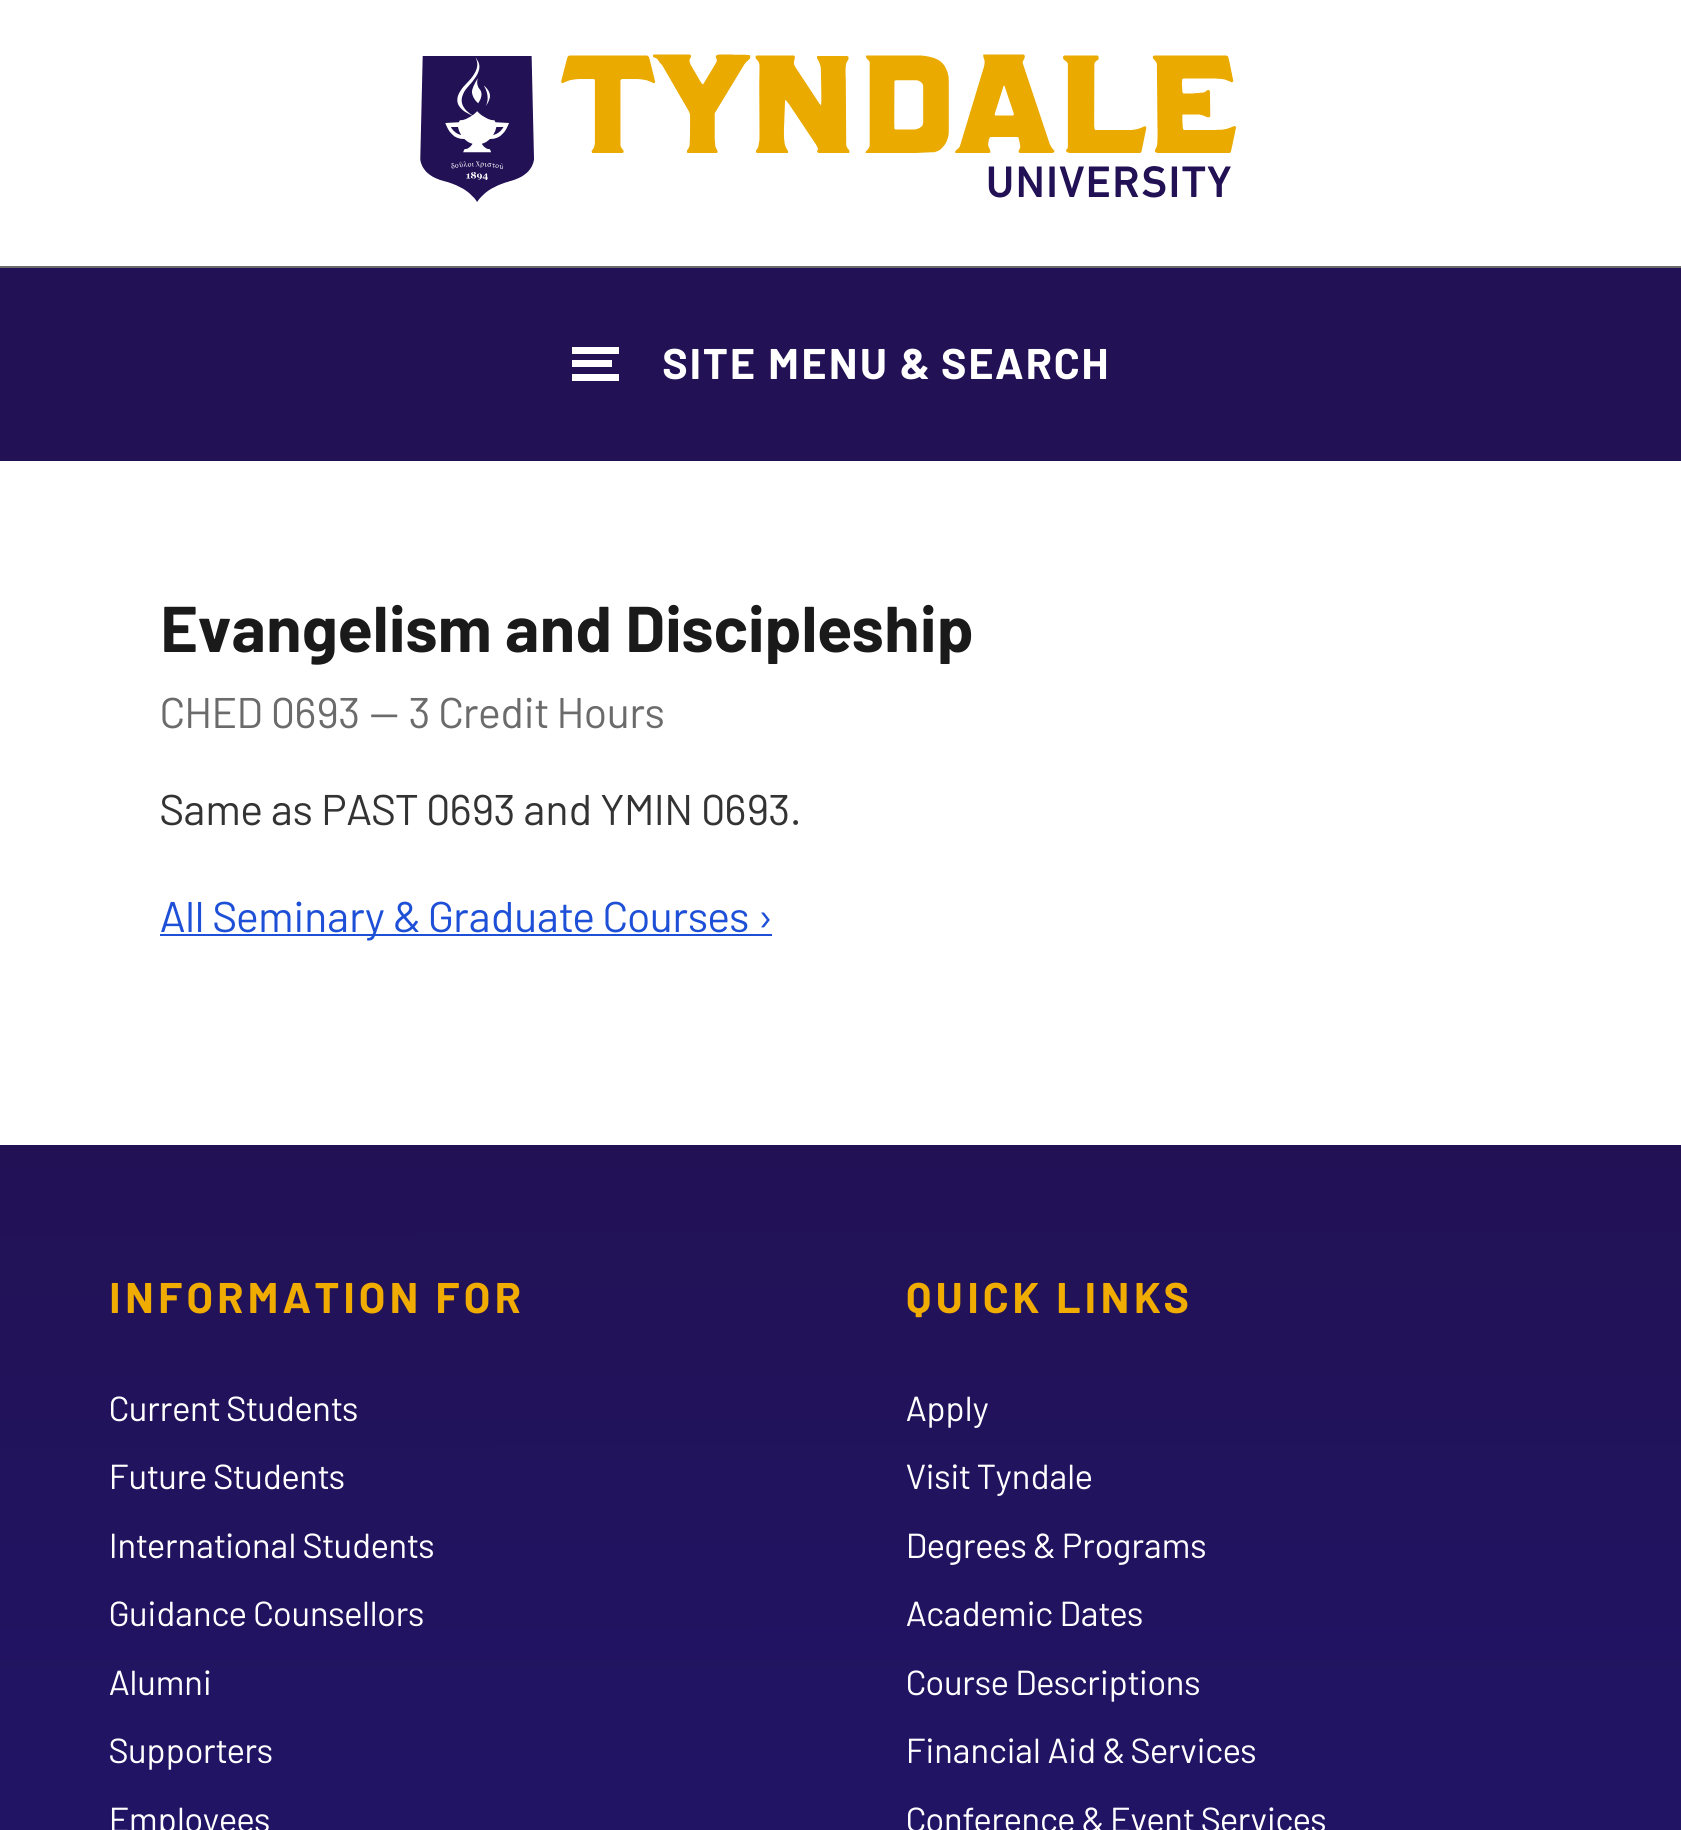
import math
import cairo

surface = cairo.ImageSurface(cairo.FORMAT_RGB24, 1681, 1830)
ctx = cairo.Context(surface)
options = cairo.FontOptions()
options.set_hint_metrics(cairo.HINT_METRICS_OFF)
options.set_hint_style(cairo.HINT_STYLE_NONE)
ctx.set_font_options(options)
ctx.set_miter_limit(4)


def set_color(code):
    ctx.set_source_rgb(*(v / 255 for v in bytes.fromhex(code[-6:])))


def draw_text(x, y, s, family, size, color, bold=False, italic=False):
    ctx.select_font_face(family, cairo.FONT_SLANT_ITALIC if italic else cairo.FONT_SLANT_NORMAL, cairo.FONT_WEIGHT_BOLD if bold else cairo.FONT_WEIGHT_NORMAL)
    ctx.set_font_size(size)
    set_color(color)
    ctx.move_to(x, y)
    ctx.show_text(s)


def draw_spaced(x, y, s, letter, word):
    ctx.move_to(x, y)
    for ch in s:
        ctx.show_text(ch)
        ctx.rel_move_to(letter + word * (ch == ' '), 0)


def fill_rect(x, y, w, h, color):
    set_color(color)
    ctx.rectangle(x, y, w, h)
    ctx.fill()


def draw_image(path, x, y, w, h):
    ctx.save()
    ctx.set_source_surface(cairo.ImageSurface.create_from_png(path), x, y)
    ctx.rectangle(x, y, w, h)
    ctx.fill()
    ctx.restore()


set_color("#ffffff")
ctx.paint()
draw_image("assets/img1.png", 420, 54, 816, 148)
fill_rect(0, 268, 1681, 193, "#221155")
fill_rect(0, 266, 1681, 2, "#6b6b6b")
fill_rect(572, 347, 47, 7, "#ffffff")
fill_rect(572, 360, 40, 7, "#ffffff")
fill_rect(572, 374, 47, 7, "#ffffff")
ctx.select_font_face("Barlow", cairo.FONT_SLANT_NORMAL, cairo.FONT_WEIGHT_BOLD)
ctx.set_font_size(42.9)
draw_spaced(663, 379, "SITE MENU & SEARCH", 2.25, 0)
draw_text(160, 652, "Evangelism and Discipleship", "Barlow", 64.6, "#1a1a1a", bold=True)
draw_text(160, 728, "CHED 0693 — 3 Credit Hours", "Barlow", 42.9, "#6b6b6b")
draw_text(160, 825, "Same as PAST 0693 and YMIN 0693.", "Barlow", 42.9, "#333333")
fill_rect(160, 934, 612, 2, "#1d4fd7")
draw_text(160, 932, "All Seminary & Graduate Courses ›", "Barlow", 42.9, "#1d4fd7")
gradient = cairo.LinearGradient(841, 1145, 842, 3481)
gradient.add_color_stop_rgba(0, 0.133, 0.067, 0.333, 1)
gradient.add_color_stop_rgba(1, 0.118, 0.11, 0.553, 1)
ctx.set_source(gradient)
ctx.rectangle(0, 1145, 1681, 685)
ctx.fill()
ctx.select_font_face("Barlow", cairo.FONT_SLANT_NORMAL, cairo.FONT_WEIGHT_BOLD)
set_color("#f0ac00")
draw_spaced(109, 1313, "INFORMATION FOR", 4.25, 0)
draw_text(109, 1421, "Current Students", "Barlow", 34.75, "#ffffff")
draw_text(109, 1489, "Future Students", "Barlow", 34.75, "#ffffff")
draw_text(109, 1558, "International Students", "Barlow", 34.75, "#ffffff")
draw_text(109, 1626, "Guidance Counsellors", "Barlow", 34.75, "#ffffff")
draw_text(109, 1695, "Alumni", "Barlow", 34.75, "#ffffff")
draw_text(109, 1763, "Supporters", "Barlow", 34.75, "#ffffff")
draw_text(109, 1832, "Employees", "Barlow", 34.75, "#ffffff")
ctx.select_font_face("Barlow", cairo.FONT_SLANT_NORMAL, cairo.FONT_WEIGHT_BOLD)
ctx.set_font_size(42.9)
set_color("#f0ac00")
draw_spaced(906, 1313, "QUICK LINKS", 4.25, 0)
draw_text(906, 1421, "Apply", "Barlow", 34.75, "#ffffff")
draw_text(906, 1489, "Visit Tyndale", "Barlow", 34.75, "#ffffff")
draw_text(906, 1558, "Degrees & Programs", "Barlow", 34.75, "#ffffff")
draw_text(906, 1626, "Academic Dates", "Barlow", 34.75, "#ffffff")
draw_text(906, 1695, "Course Descriptions", "Barlow", 34.75, "#ffffff")
draw_text(906, 1763, "Financial Aid & Services", "Barlow", 34.75, "#ffffff")
draw_text(906, 1832, "Conference & Event Services", "Barlow", 34.75, "#ffffff")
surface.write_to_png("output.png")
